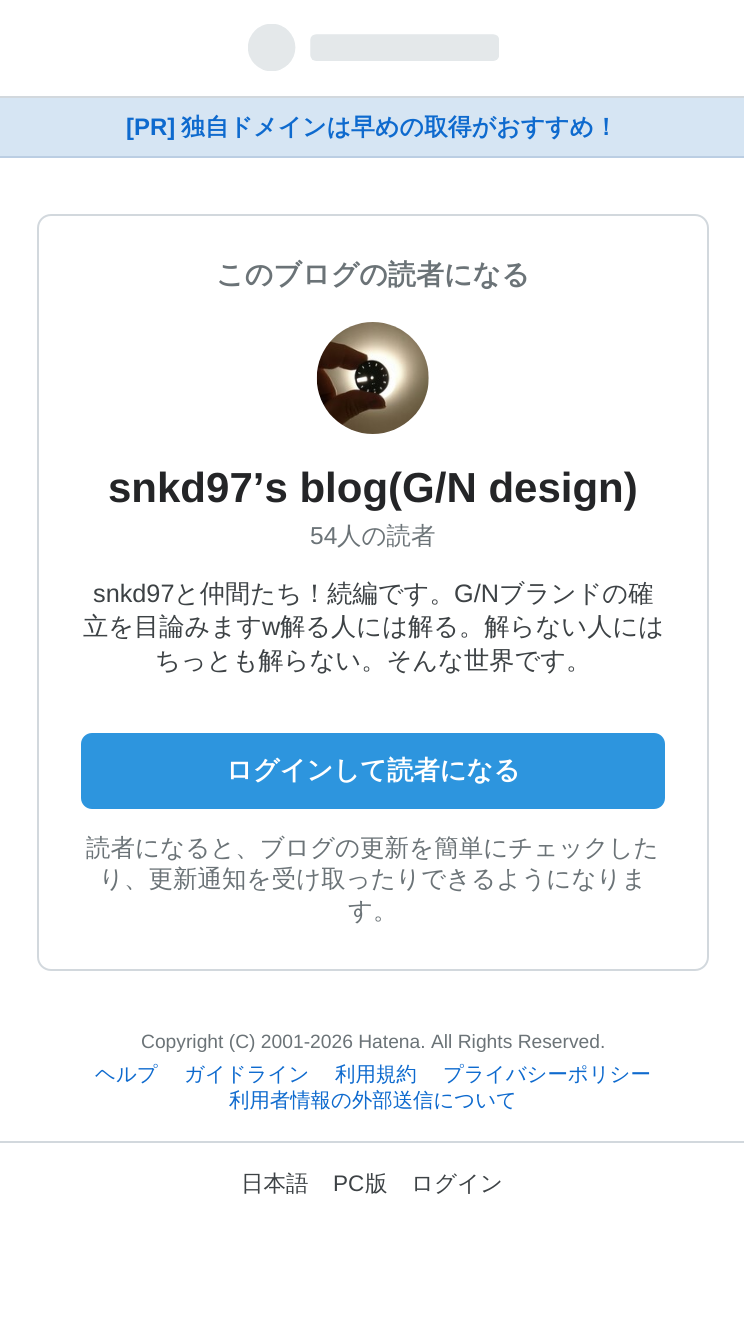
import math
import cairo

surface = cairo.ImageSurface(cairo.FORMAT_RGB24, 744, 1339)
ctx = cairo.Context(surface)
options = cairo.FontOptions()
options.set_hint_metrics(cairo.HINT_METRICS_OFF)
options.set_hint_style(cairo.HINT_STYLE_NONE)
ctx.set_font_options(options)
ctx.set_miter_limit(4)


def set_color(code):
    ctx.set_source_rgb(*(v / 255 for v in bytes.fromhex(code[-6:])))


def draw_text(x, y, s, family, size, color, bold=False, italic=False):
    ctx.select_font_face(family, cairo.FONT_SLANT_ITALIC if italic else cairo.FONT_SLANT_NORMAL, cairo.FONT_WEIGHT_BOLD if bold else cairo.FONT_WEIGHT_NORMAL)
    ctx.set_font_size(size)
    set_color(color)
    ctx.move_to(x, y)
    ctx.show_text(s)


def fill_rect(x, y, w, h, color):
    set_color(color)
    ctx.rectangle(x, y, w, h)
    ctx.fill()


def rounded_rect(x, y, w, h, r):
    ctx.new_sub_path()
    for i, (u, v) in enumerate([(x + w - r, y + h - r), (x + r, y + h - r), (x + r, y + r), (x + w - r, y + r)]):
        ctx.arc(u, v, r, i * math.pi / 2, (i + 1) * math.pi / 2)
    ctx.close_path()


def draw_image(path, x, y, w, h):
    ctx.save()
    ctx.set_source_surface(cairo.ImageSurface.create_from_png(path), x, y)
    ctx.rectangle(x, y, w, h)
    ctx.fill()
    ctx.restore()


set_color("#ffffff")
ctx.paint()
fill_rect(0, 96, 744, 2, "#d2d8dd")
draw_image("assets/img1.png", 248, 24, 251, 47)
fill_rect(0, 98, 744, 58, "#d6e5f3")
fill_rect(0, 156, 744, 2, "#bbcee3")
draw_text(126, 135, "[PR]", "Liberation Sans", 23.9, "#0e6ace", bold=True)
draw_text(181, 135, "独自ドメインは早めの取得がおすすめ！", "WenQuanYi Zen Hei", 23.9, "#0e6ace", bold=True)
rounded_rect(38, 215, 670, 755, 13)
set_color("#d2d8dd")
ctx.stroke()
draw_text(216, 284, "このブログの読者になる", "WenQuanYi Zen Hei", 28, "#6b7377", bold=True)
draw_image("assets/img2.png", 316, 322, 113, 112)
draw_text(108, 502, "snkd97’s blog(G/N design)", "Liberation Sans", 42, "#242527", bold=True)
draw_text(310, 544, "54", "Liberation Sans", 24.5, "#6b7377")
draw_text(337, 544, "人の読者", "WenQuanYi Zen Hei Medium", 24.5, "#6b7377")
draw_text(93, 602, "snkd97", "Liberation Sans", 25.25, "#3d4245")
draw_text(174, 602, "と仲間たち！続編です。", "WenQuanYi Zen Hei Medium", 25.25, "#3d4245")
draw_text(454, 602, "G/N", "Liberation Sans", 25.25, "#3d4245")
draw_text(499, 602, "ブランドの確", "WenQuanYi Zen Hei Medium", 25.25, "#3d4245")
draw_text(83, 635, "立を目論みます", "WenQuanYi Zen Hei Medium", 25.25, "#3d4245")
draw_text(262, 635, "w", "Liberation Sans", 25.25, "#3d4245")
draw_text(280, 635, "解る人には解る。解らない人には", "WenQuanYi Zen Hei Medium", 25.25, "#3d4245")
draw_text(155, 669, "ちっとも解らない。そんな世界です。", "WenQuanYi Zen Hei Medium", 25.25, "#3d4245")
set_color("#2d95de")
rounded_rect(81, 733, 584, 76, 11)
ctx.fill()
draw_text(226, 779, "ログインして読者になる", "WenQuanYi Zen Hei", 26.25, "#ffffff", bold=True)
draw_text(86, 856, "読者になると、ブログの更新を簡単にチェックした", "WenQuanYi Zen Hei Medium", 24.5, "#6b7377")
draw_text(99, 887, "り、更新通知を受け取ったりできるようになりま", "WenQuanYi Zen Hei Medium", 24.5, "#6b7377")
draw_text(348, 919, "す。", "WenQuanYi Zen Hei Medium", 24.5, "#6b7377")
draw_text(141, 1048, "Copyright (C) 2001-2026 Hatena. All Rights Reserved.", "Liberation Sans", 19.25, "#6b7377")
draw_text(95, 1081, "ヘルプ", "WenQuanYi Zen Hei Medium", 20.4, "#0e6ace")
draw_text(184, 1081, "ガイドライン", "WenQuanYi Zen Hei Medium", 20.4, "#0e6ace")
draw_text(335, 1081, "利用規約", "WenQuanYi Zen Hei Medium", 20.4, "#0e6ace")
draw_text(443, 1081, "プライバシーポリシー", "WenQuanYi Zen Hei Medium", 20.4, "#0e6ace")
draw_text(229, 1107, "利用者情報の外部送信について", "WenQuanYi Zen Hei Medium", 20.4, "#0e6ace")
fill_rect(0, 1141, 744, 2, "#d2d8dd")
draw_text(241, 1191, "日本語", "WenQuanYi Zen Hei Medium", 22.5, "#3d4245")
draw_text(333, 1191, "PC", "Liberation Sans", 22.5, "#3d4245")
draw_text(365, 1191, "版", "WenQuanYi Zen Hei Medium", 22.5, "#3d4245")
draw_text(411, 1191, "ログイン", "WenQuanYi Zen Hei Medium", 22.5, "#3d4245")
surface.write_to_png("output.png")
